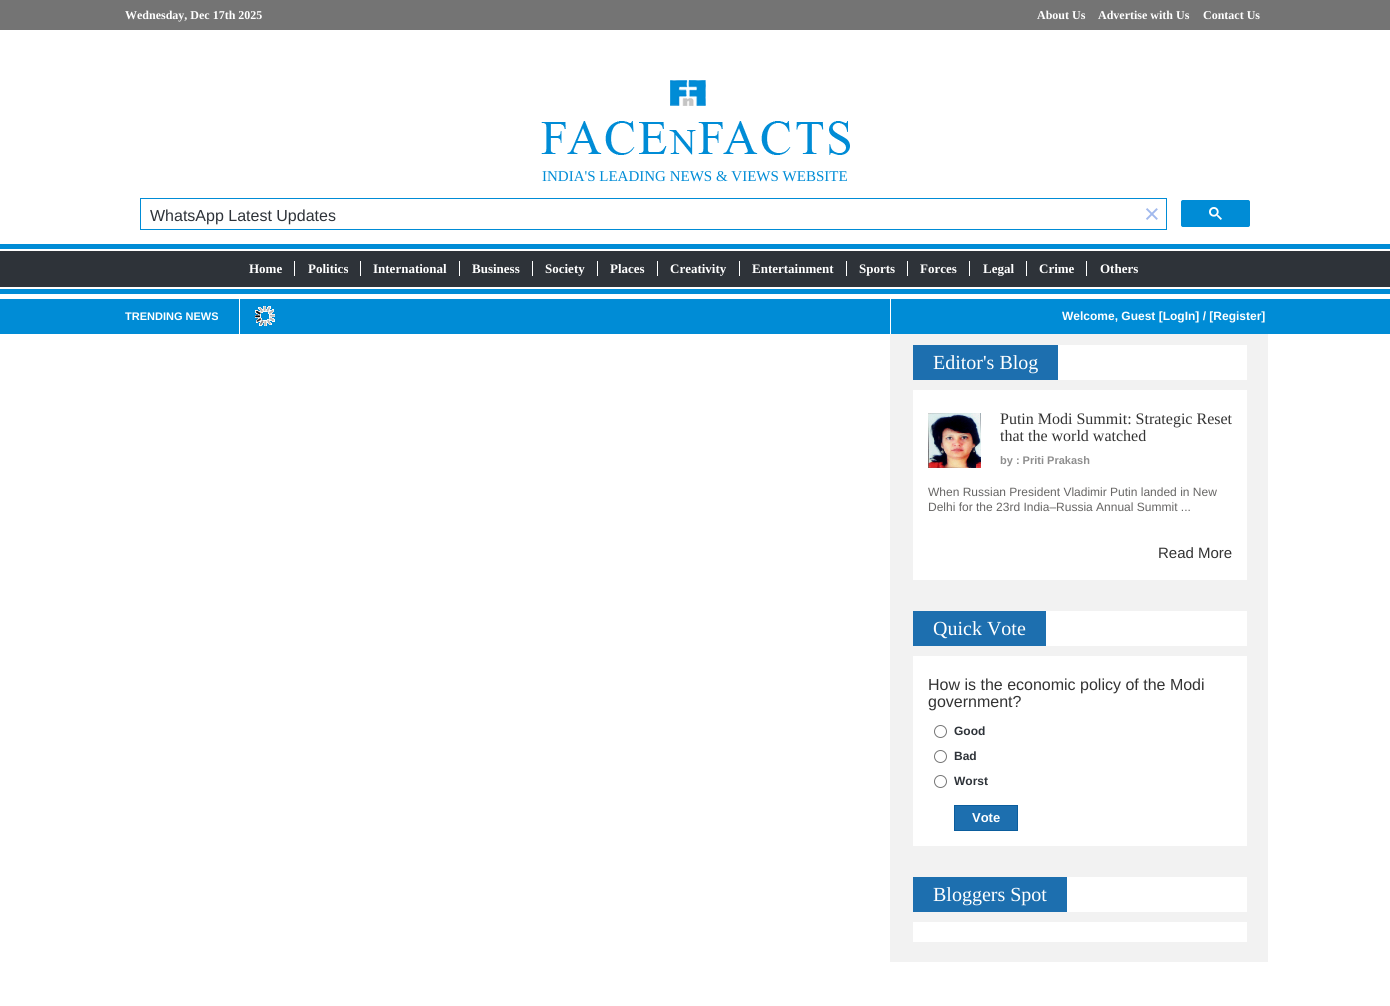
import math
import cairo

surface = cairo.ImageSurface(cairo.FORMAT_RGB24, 1390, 1006)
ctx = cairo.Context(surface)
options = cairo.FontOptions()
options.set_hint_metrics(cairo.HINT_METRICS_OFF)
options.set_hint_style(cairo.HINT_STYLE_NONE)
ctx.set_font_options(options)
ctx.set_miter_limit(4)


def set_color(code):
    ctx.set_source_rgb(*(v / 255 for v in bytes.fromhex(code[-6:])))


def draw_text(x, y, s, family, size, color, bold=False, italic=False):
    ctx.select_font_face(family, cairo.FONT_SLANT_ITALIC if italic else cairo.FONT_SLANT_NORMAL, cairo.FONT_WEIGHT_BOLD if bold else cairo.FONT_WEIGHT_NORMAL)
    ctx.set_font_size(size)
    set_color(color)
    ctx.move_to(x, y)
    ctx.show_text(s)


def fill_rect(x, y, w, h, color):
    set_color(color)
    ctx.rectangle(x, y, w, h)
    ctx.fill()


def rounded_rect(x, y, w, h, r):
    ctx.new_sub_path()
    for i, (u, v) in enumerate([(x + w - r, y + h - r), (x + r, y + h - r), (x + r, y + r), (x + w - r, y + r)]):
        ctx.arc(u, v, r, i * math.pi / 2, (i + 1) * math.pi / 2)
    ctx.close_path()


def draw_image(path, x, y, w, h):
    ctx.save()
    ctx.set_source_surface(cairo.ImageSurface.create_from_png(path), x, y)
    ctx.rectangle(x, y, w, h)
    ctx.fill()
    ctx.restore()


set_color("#ffffff")
ctx.paint()
fill_rect(0, 0, 1390, 30, "#747474")
draw_text(125, 19, "Wednesday, Dec 17th 2025", "Liberation Serif", 12, "#ffffff", bold=True)
draw_text(1037, 19, "About Us", "Liberation Serif", 12, "#ffffff", bold=True)
draw_text(1098, 19, "Advertise with Us", "Liberation Serif", 12, "#ffffff", bold=True)
draw_text(1203, 19, "Contact Us", "Liberation Serif", 12, "#ffffff", bold=True)
draw_image("assets/img1.png", 541, 80, 309, 75)
draw_text(542, 181, "INDIA'S LEADING NEWS & VIEWS WEBSITE", "Liberation Serif", 15, "#008cd6")
ctx.rectangle(140.5, 198.5, 1026, 31)
ctx.set_line_width(1)
ctx.stroke()
draw_text(150, 221, "WhatsApp Latest Updates", "Liberation Sans", 16, "#2e3339")
draw_text(1144, 223, "×", "Liberation Sans", 27, "#a1b9ed")
set_color("#008cd6")
rounded_rect(1181.5, 200.5, 68, 26, 1.5)
ctx.fill_preserve()
ctx.stroke()
draw_image("assets/img2.png", 1209, 207, 13, 13)
fill_rect(0, 244, 1390, 5, "#008cd6")
fill_rect(0, 289, 1390, 5, "#008cd6")
fill_rect(0, 251, 1390, 36, "#2e3339")
draw_text(249, 273, "Home", "Liberation Serif", 13, "#ffffff", bold=True)
fill_rect(294, 261, 1, 15, "#ffffff")
draw_text(308, 273, "Politics", "Liberation Serif", 13, "#ffffff", bold=True)
fill_rect(360, 261, 1, 15, "#ffffff")
draw_text(373, 273, "International", "Liberation Serif", 13, "#ffffff", bold=True)
fill_rect(459, 261, 1, 15, "#ffffff")
draw_text(472, 273, "Business", "Liberation Serif", 13, "#ffffff", bold=True)
fill_rect(532, 261, 1, 15, "#ffffff")
draw_text(545, 273, "Society", "Liberation Serif", 13, "#ffffff", bold=True)
fill_rect(597, 261, 1, 15, "#ffffff")
draw_text(610, 273, "Places", "Liberation Serif", 13, "#ffffff", bold=True)
fill_rect(657, 261, 1, 15, "#ffffff")
draw_text(670, 273, "Creativity", "Liberation Serif", 13, "#ffffff", bold=True)
fill_rect(739, 261, 1, 15, "#ffffff")
draw_text(752, 273, "Entertainment", "Liberation Serif", 13, "#ffffff", bold=True)
fill_rect(846, 261, 1, 15, "#ffffff")
draw_text(859, 273, "Sports", "Liberation Serif", 13, "#ffffff", bold=True)
fill_rect(907, 261, 1, 15, "#ffffff")
draw_text(920, 273, "Forces", "Liberation Serif", 13, "#ffffff", bold=True)
fill_rect(969, 261, 1, 15, "#ffffff")
draw_text(983, 273, "Legal", "Liberation Serif", 13, "#ffffff", bold=True)
fill_rect(1026, 261, 1, 15, "#ffffff")
draw_text(1039, 273, "Crime", "Liberation Serif", 13, "#ffffff", bold=True)
fill_rect(1086, 261, 1, 15, "#ffffff")
draw_text(1100, 273, "Others", "Liberation Serif", 13, "#ffffff", bold=True)
fill_rect(0, 299, 1390, 35, "#008cd6")
fill_rect(239, 299, 1, 35, "#ffffff")
draw_text(125, 320, "TRENDING NEWS", "Liberation Sans", 11, "#ffffff", bold=True)
draw_image("assets/img3.png", 255, 306, 20, 20)
fill_rect(890, 299, 1, 35, "#ffffff")
draw_text(1062, 320, "Welcome, Guest [LogIn] / [Register]", "Liberation Sans", 12, "#ffffff", bold=True)
fill_rect(890, 334, 378, 628, "#f2f2f2")
fill_rect(1058, 345, 189, 35, "#ffffff")
fill_rect(913, 345, 145, 35, "#1d6faf")
draw_text(933, 369, "Editor's Blog", "Liberation Serif", 20, "#ffffff")
fill_rect(913, 390, 334, 190, "#ffffff")
draw_image("assets/img4.png", 928, 413, 53, 55)
draw_text(1000, 424, "Putin Modi Summit: Strategic Reset", "Liberation Serif", 16, "#333333")
draw_text(1000, 441, "that the world watched", "Liberation Serif", 16, "#333333")
draw_text(1000, 464, "by : Priti Prakash", "Liberation Sans", 11, "#8e8e8e", bold=True)
draw_text(928, 496, "When Russian President Vladimir Putin landed in New", "Liberation Sans", 12, "#666564")
draw_text(928, 511, "Delhi for the 23rd India–Russia Annual Summit ...", "Liberation Sans", 12, "#666564")
draw_text(1158, 558, "Read More", "Liberation Sans", 15, "#333333")
fill_rect(1046, 611, 201, 35, "#ffffff")
fill_rect(913, 611, 133, 35, "#1d6faf")
draw_text(933, 635, "Quick Vote", "Liberation Serif", 20, "#ffffff")
fill_rect(913, 656, 334, 190, "#ffffff")
draw_text(928, 690, "How is the economic policy of the Modi", "Liberation Sans", 16, "#333333")
draw_text(928, 707, "government?", "Liberation Sans", 16, "#333333")
ctx.new_path()
ctx.arc(940.5, 731.5, 6, 0, 2 * math.pi)
set_color("#767676")
ctx.stroke()
draw_text(954, 735, "Good", "Liberation Sans", 12, "#2e3339", bold=True)
ctx.new_path()
ctx.arc(940.5, 756.5, 6, 0, 2 * math.pi)
set_color("#767676")
ctx.stroke()
draw_text(954, 760, "Bad", "Liberation Sans", 12, "#2e3339", bold=True)
ctx.new_path()
ctx.arc(940.5, 781.5, 6, 0, 2 * math.pi)
set_color("#767676")
ctx.stroke()
draw_text(954, 785, "Worst", "Liberation Sans", 12, "#2e3339", bold=True)
set_color("#1d6faf")
ctx.rectangle(954.5, 805.5, 63, 25)
ctx.fill_preserve()
set_color("#0b5d9d")
ctx.stroke()
draw_text(972, 822, "Vote", "Liberation Sans", 13, "#ffffff", bold=True)
fill_rect(1067, 877, 180, 35, "#ffffff")
fill_rect(913, 877, 154, 35, "#1d6faf")
draw_text(933, 901, "Bloggers Spot", "Liberation Serif", 20, "#ffffff")
fill_rect(913, 922, 334, 20, "#ffffff")
surface.write_to_png("output.png")
